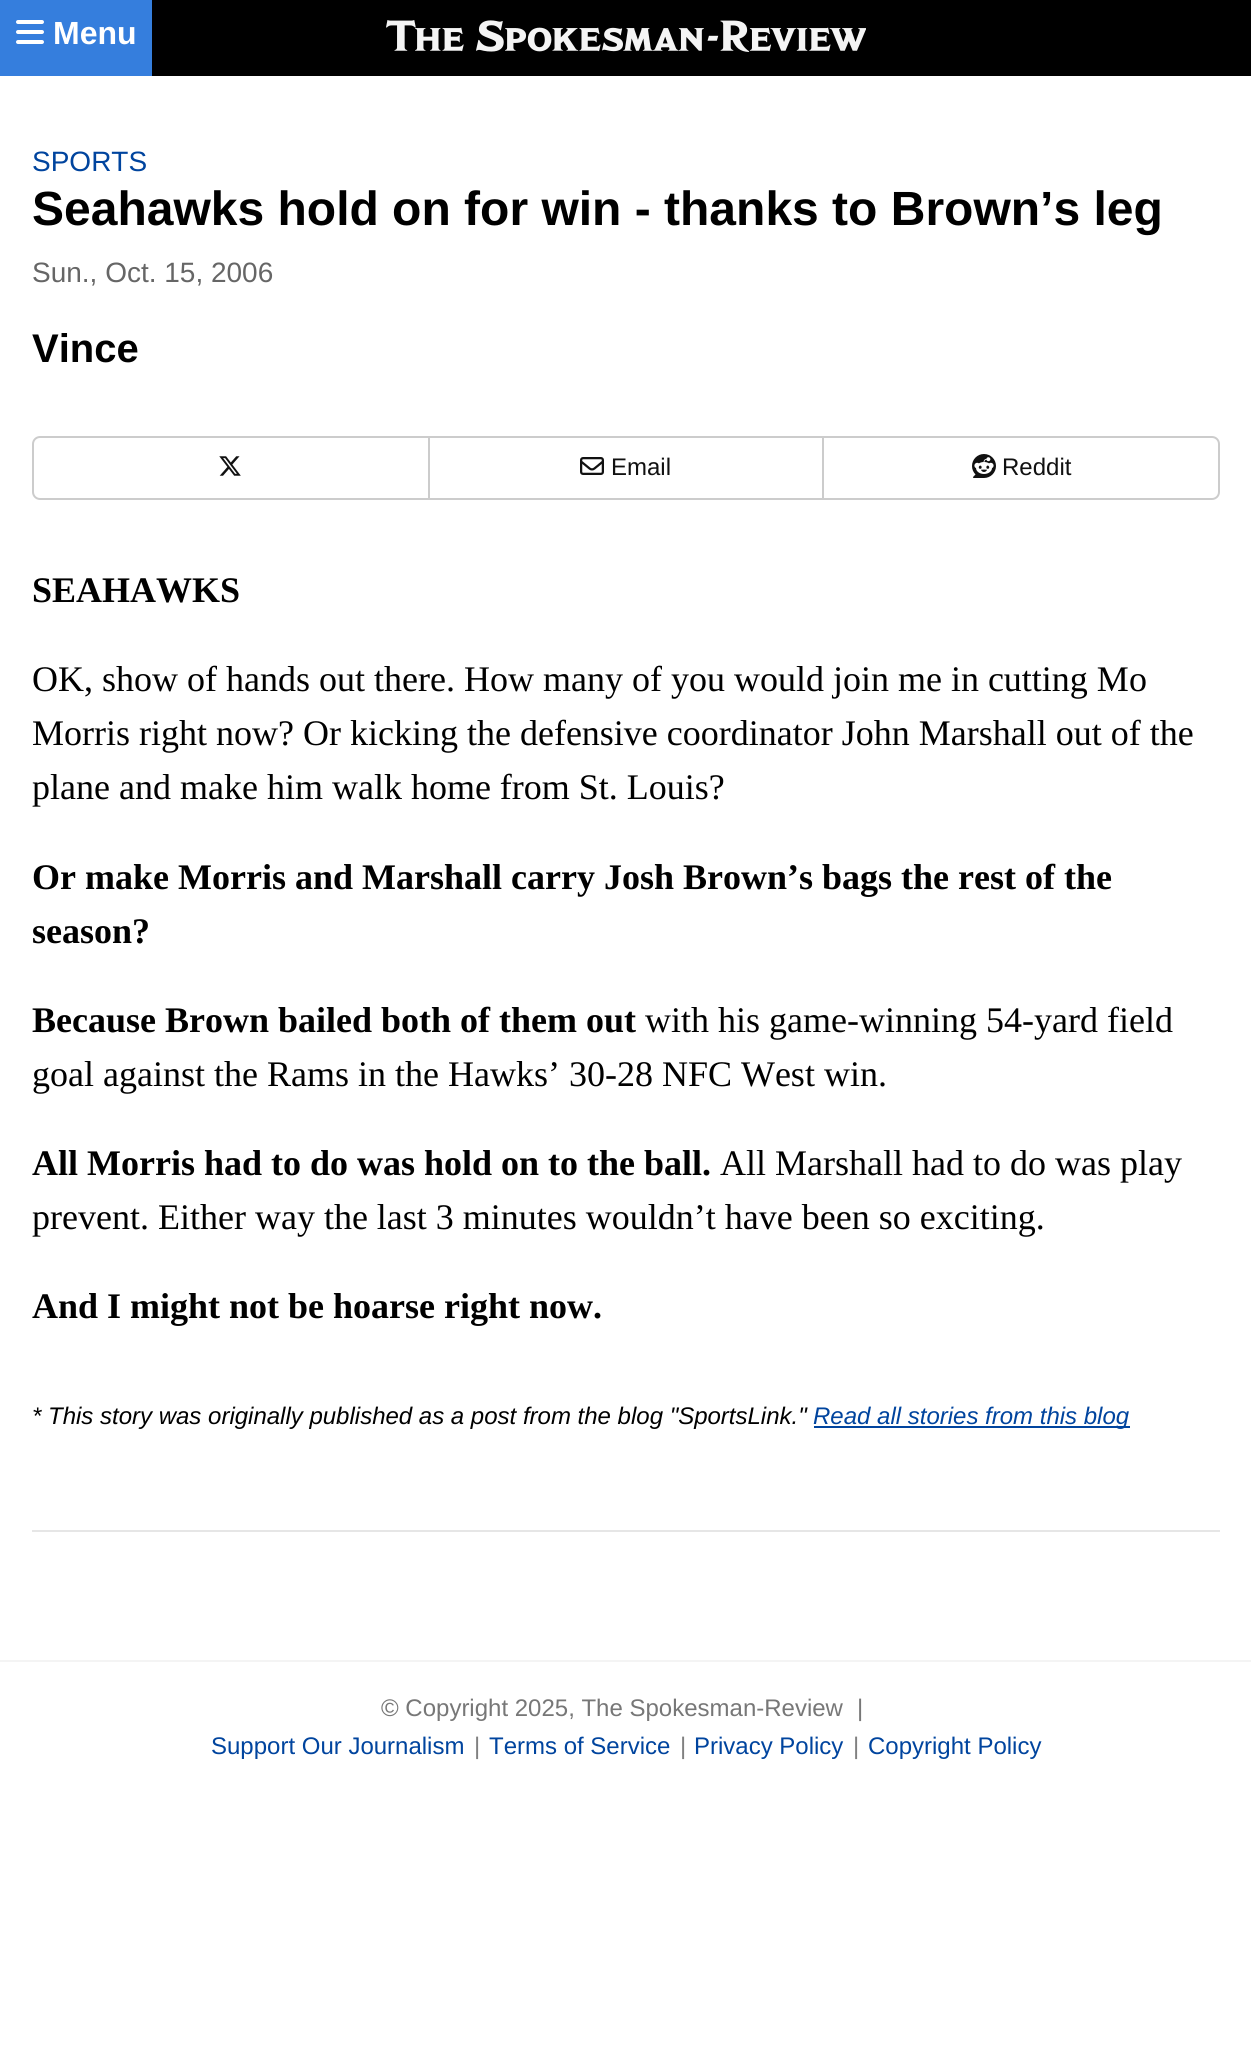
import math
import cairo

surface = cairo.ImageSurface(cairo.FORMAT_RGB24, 1251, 2059)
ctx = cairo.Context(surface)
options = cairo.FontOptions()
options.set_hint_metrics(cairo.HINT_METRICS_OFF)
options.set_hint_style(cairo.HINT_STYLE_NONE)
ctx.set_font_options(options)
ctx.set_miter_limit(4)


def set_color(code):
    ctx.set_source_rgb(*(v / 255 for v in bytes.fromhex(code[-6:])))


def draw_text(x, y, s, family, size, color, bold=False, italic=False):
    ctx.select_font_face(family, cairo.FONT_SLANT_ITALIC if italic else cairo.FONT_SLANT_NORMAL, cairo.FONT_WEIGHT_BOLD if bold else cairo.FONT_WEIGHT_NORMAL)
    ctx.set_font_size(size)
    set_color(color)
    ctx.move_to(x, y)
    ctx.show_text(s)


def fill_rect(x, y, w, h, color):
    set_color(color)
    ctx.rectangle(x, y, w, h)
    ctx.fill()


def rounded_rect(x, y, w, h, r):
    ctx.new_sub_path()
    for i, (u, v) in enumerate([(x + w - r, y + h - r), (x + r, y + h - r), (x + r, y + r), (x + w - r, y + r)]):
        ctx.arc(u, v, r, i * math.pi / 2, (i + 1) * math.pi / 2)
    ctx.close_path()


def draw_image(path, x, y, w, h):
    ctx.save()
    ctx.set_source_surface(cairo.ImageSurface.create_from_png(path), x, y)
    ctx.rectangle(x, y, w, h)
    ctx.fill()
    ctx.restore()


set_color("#ffffff")
ctx.paint()
fill_rect(152, 0, 1099, 76, "#000000")
fill_rect(0, 0, 152, 76, "#357edd")
draw_image("assets/img1.png", 16, 20, 28, 24)
draw_text(53, 44, "Menu", "Liberation Sans", 32, "#ffffff", bold=True)
draw_image("assets/img2.png", 386, 20, 480, 32)
fill_rect(32, 1530, 1188, 2, "#e6e6e6")
draw_text(32, 171, "SPORTS", "Liberation Sans", 28, "#00449e")
draw_text(32, 225, "Seahawks hold on for win - thanks to Brown’s leg", "Liberation Sans", 48, "#000000", bold=True)
draw_text(32, 282, "Sun., Oct. 15, 2006", "Liberation Sans", 28, "#666666")
draw_text(32, 362, "Vince", "Liberation Sans", 40, "#000000", bold=True)
rounded_rect(33, 437, 1186, 62, 7)
set_color("#cccccc")
ctx.stroke()
fill_rect(428, 438, 2, 60, "#cccccc")
draw_image("assets/img3.png", 219, 456, 22, 20)
fill_rect(822, 438, 2, 60, "#cccccc")
draw_image("assets/img4.png", 580, 457, 24, 18)
draw_text(611, 475, "Email", "Liberation Sans", 24, "#111111")
draw_image("assets/img5.png", 972, 454, 24, 24)
draw_text(1002, 475, "Reddit", "Liberation Sans", 24, "#111111")
draw_text(32, 602, "SEAHAWKS", "Liberation Serif", 36, "#000000", bold=True)
draw_text(32, 691, "OK, show of hands out there. How many of you would join me in cutting Mo", "Liberation Serif", 36, "#000000")
draw_text(32, 745, "Morris right now? Or kicking the defensive coordinator John Marshall out of the", "Liberation Serif", 36, "#000000")
draw_text(32, 799, "plane and make him walk home from St. Louis?", "Liberation Serif", 36, "#000000")
draw_text(32, 889, "Or make Morris and Marshall carry Josh Brown’s bags the rest of the", "Liberation Serif", 36, "#000000", bold=True)
draw_text(32, 943, "season?", "Liberation Serif", 36, "#000000", bold=True)
draw_text(32, 1032, "Because Brown bailed both of them out", "Liberation Serif", 36, "#000000", bold=True)
draw_text(645, 1032, "with his game-winning 54-yard field", "Liberation Serif", 36, "#000000")
draw_text(32, 1086, "goal against the Rams in the Hawks’ 30-28 NFC West win.", "Liberation Serif", 36, "#000000")
draw_text(32, 1175, "All Morris had to do was hold on to the ball.", "Liberation Serif", 36, "#000000", bold=True)
draw_text(720, 1175, "All Marshall had to do was play", "Liberation Serif", 36, "#000000")
draw_text(32, 1229, "prevent. Either way the last 3 minutes wouldn’t have been so exciting.", "Liberation Serif", 36, "#000000")
draw_text(32, 1318, "And I might not be hoarse right now.", "Liberation Serif", 36, "#000000", bold=True)
draw_text(32, 1424, "* This story was originally published as a post from the blog \"SportsLink.\"", "Liberation Sans", 24, "#000000", italic=True)
fill_rect(814, 1426, 316, 2, "#00449e")
draw_text(813, 1424, "Read all stories from this blog", "Liberation Sans", 24, "#00449e", italic=True)
fill_rect(0, 1660, 1251, 2, "#f4f4f4")
draw_text(381, 1716, "© Copyright 2025, The Spokesman-Review", "Liberation Sans", 24, "#777777")
draw_text(857, 1716, "|", "Liberation Sans", 24, "#777777")
draw_text(211, 1754, "Support Our Journalism", "Liberation Sans", 24, "#00449e")
draw_text(474, 1754, "|", "Liberation Sans", 24, "#808080")
draw_text(489, 1754, "Terms of Service", "Liberation Sans", 24, "#00449e")
draw_text(680, 1754, "|", "Liberation Sans", 24, "#808080")
draw_text(694, 1754, "Privacy Policy", "Liberation Sans", 24, "#00449e")
draw_text(853, 1754, "|", "Liberation Sans", 24, "#808080")
draw_text(868, 1754, "Copyright Policy", "Liberation Sans", 24, "#00449e")
surface.write_to_png("output.png")
